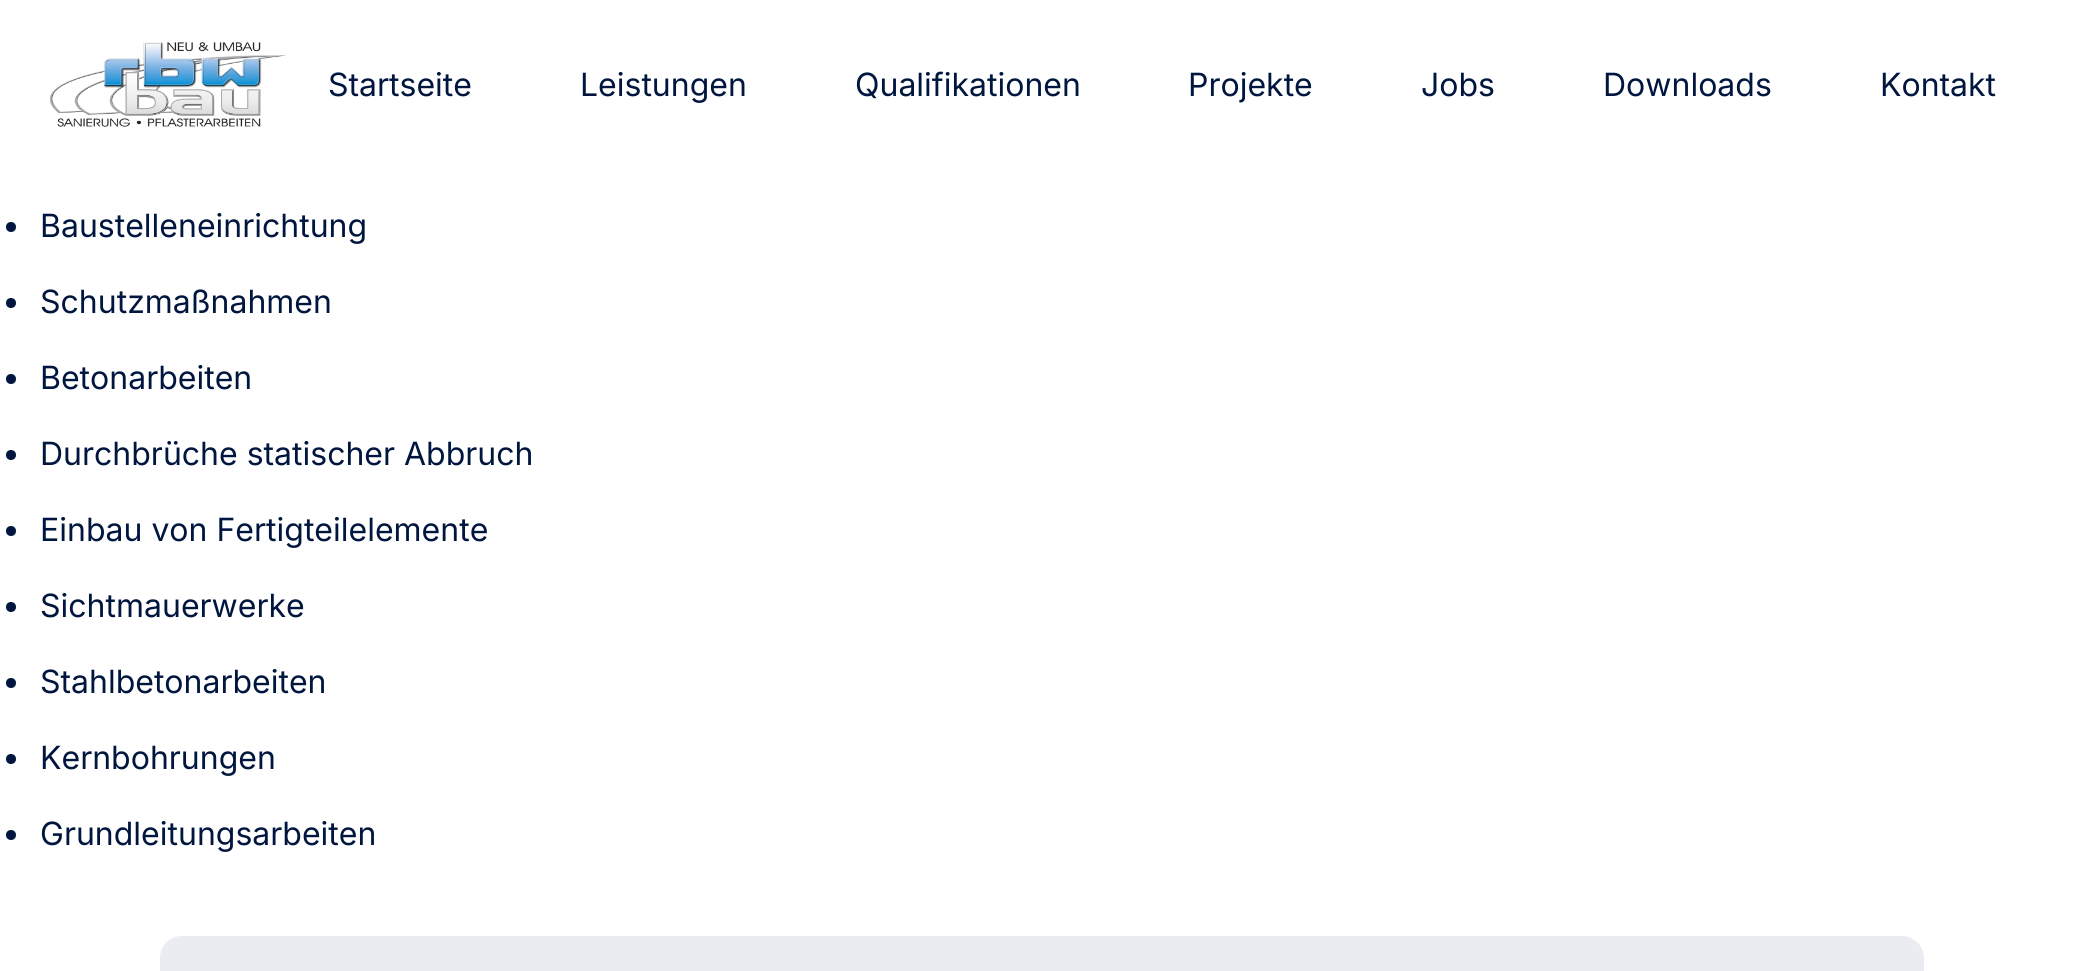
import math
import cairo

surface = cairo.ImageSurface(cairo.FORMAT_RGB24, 2084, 971)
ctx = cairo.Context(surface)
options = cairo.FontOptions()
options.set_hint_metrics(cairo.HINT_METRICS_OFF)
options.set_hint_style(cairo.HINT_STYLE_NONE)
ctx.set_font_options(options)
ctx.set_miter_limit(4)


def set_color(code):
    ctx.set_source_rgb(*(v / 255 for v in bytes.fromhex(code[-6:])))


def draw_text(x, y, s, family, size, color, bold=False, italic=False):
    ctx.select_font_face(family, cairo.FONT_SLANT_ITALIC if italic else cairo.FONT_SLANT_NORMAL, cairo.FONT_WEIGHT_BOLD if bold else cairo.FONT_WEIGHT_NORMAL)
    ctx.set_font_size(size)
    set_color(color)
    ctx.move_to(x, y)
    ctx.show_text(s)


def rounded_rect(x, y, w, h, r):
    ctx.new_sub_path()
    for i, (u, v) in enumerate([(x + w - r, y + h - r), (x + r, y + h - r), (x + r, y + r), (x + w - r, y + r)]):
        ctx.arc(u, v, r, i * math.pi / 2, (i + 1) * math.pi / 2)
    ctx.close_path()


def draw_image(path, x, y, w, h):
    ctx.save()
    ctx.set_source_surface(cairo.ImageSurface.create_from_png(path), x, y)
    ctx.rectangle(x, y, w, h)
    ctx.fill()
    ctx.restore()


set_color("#ffffff")
ctx.paint()
draw_image("assets/img1.png", 50, 42, 236, 85)
draw_text(328, 96, "Startseite", "Inter", 32, "#00163f")
draw_text(580, 96, "Leistungen", "Inter", 32, "#00163f")
draw_text(855, 96, "Qualifikationen", "Inter", 32, "#00163f")
draw_text(1188, 96, "Projekte", "Inter", 32, "#00163f")
draw_text(1421, 96, "Jobs", "Inter", 32, "#00163f")
draw_text(1603, 96, "Downloads", "Inter", 32, "#00163f")
draw_text(1880, 96, "Kontakt", "Inter", 32, "#00163f")
ctx.new_path()
ctx.arc(11, 227, 5, 0, 2 * math.pi)
ctx.fill()
draw_text(40, 237, "Baustelleneinrichtung", "Inter", 32, "#00163f")
ctx.new_path()
ctx.arc(11, 303, 5, 0, 2 * math.pi)
ctx.fill()
draw_text(40, 313, "Schutzmaßnahmen", "Inter", 32, "#00163f")
ctx.new_path()
ctx.arc(11, 379, 5, 0, 2 * math.pi)
ctx.fill()
draw_text(40, 389, "Betonarbeiten", "Inter", 32, "#00163f")
ctx.new_path()
ctx.arc(11, 455, 5, 0, 2 * math.pi)
ctx.fill()
draw_text(40, 465, "Durchbrüche statischer Abbruch", "Inter", 32, "#00163f")
ctx.new_path()
ctx.arc(11, 531, 5, 0, 2 * math.pi)
ctx.fill()
draw_text(40, 541, "Einbau von Fertigteilelemente", "Inter", 32, "#00163f")
ctx.new_path()
ctx.arc(11, 607, 5, 0, 2 * math.pi)
ctx.fill()
draw_text(40, 617, "Sichtmauerwerke", "Inter", 32, "#00163f")
ctx.new_path()
ctx.arc(11, 683, 5, 0, 2 * math.pi)
ctx.fill()
draw_text(40, 693, "Stahlbetonarbeiten", "Inter", 32, "#00163f")
ctx.new_path()
ctx.arc(11, 759, 5, 0, 2 * math.pi)
ctx.fill()
draw_text(40, 769, "Kernbohrungen", "Inter", 32, "#00163f")
ctx.new_path()
ctx.arc(11, 835, 5, 0, 2 * math.pi)
ctx.fill()
draw_text(40, 845, "Grundleitungsarbeiten", "Inter", 32, "#00163f")
set_color("#ebecf1")
rounded_rect(160, 936, 1764, 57, 22)
ctx.fill()
surface.write_to_png("output.png")
